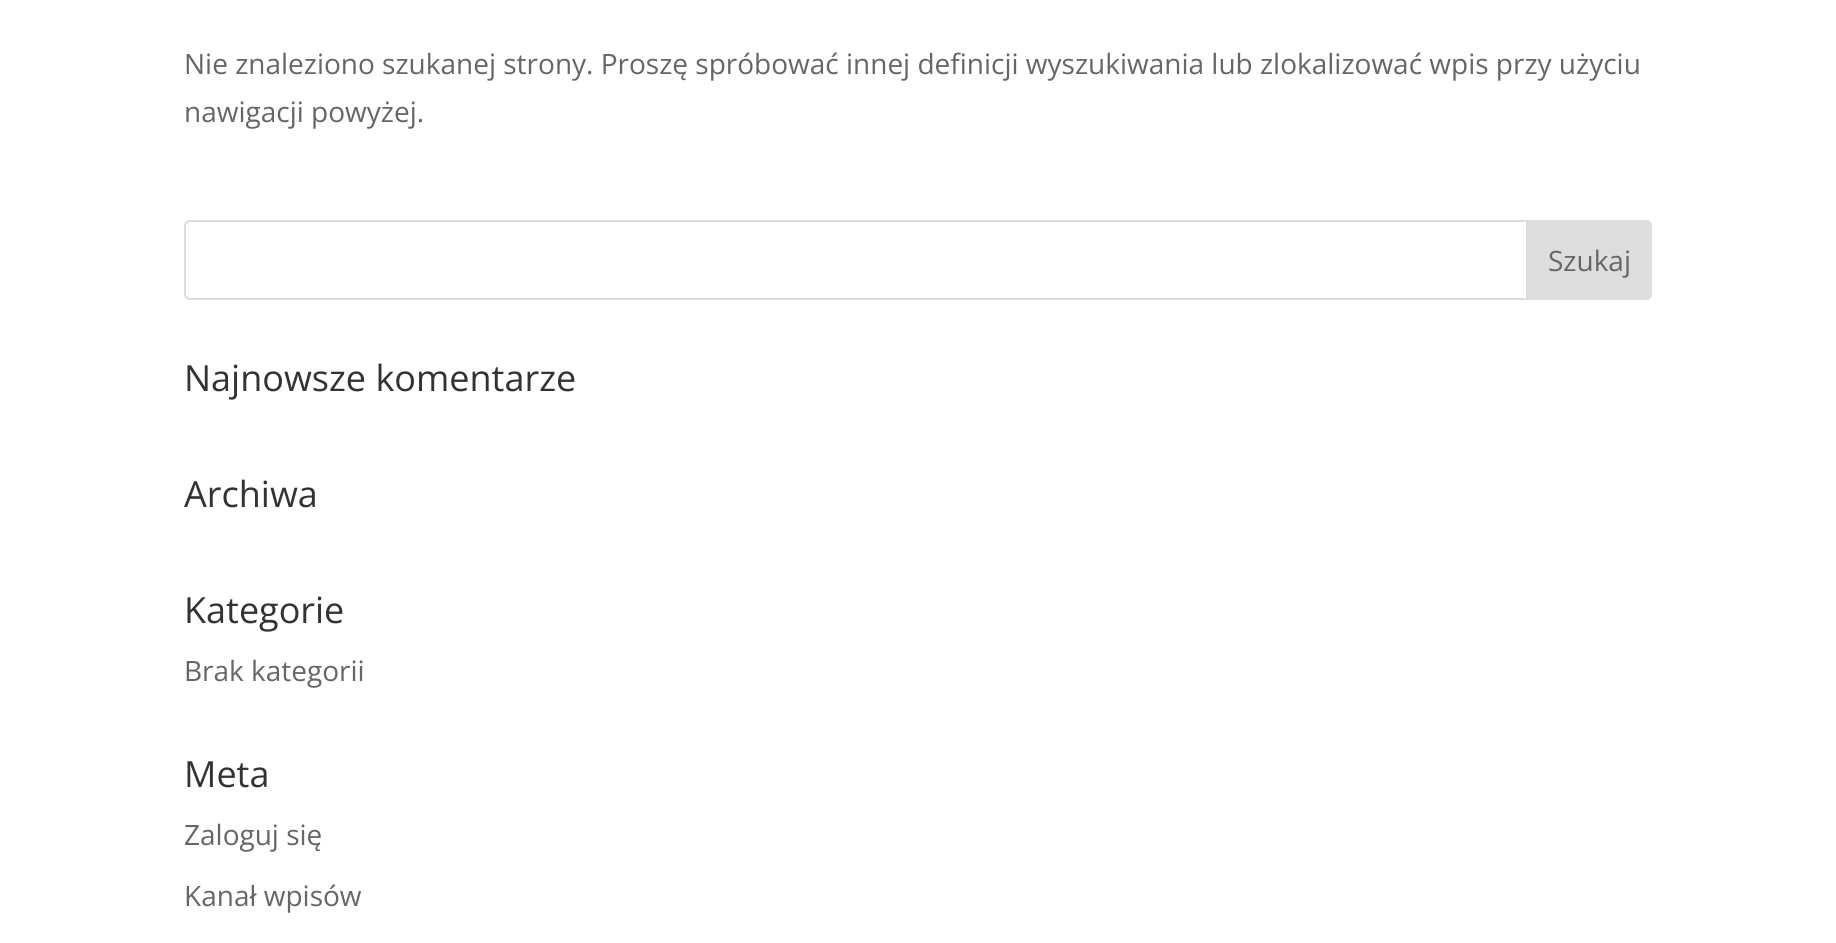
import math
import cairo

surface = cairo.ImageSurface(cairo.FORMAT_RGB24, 1836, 943)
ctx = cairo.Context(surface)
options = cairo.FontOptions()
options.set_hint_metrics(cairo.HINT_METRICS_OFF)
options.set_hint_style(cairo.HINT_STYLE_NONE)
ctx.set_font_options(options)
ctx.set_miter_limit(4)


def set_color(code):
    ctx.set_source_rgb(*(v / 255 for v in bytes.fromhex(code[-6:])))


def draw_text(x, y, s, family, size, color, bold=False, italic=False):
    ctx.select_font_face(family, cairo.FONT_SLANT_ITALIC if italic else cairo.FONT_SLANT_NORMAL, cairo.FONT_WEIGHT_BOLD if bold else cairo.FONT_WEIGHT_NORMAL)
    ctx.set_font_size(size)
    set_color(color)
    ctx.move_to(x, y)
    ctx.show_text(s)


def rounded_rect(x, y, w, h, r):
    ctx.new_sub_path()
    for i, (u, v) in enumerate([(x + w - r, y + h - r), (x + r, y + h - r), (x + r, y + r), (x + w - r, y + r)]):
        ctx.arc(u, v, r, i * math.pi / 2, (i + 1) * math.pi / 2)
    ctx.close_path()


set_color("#ffffff")
ctx.paint()
draw_text(184, 74, "Nie znaleziono szukanej strony. Proszę spróbować innej definicji wyszukiwania lub zlokalizować wpis przy użyciu", "Open Sans", 28, "#666666")
draw_text(184, 122, "nawigacji powyżej.", "Open Sans", 28, "#666666")
rounded_rect(185, 221, 1466, 78, 5)
set_color("#dddddd")
ctx.stroke()
ctx.new_path()
ctx.move_to(1527, 221)
ctx.line_to(1646, 221)
ctx.curve_to(1649, 221, 1651, 223, 1651, 226)
ctx.line_to(1651, 294)
ctx.curve_to(1651, 297, 1649, 299, 1646, 299)
ctx.line_to(1527, 299)
ctx.close_path()
ctx.fill_preserve()
ctx.stroke()
draw_text(1548, 271, "Szukaj", "Open Sans", 28, "#666666")
draw_text(184, 391, "Najnowsze komentarze", "Open Sans", 36, "#333333")
draw_text(184, 507, "Archiwa", "Open Sans", 36, "#333333")
draw_text(184, 623, "Kategorie", "Open Sans", 36, "#333333")
draw_text(184, 681, "Brak kategorii", "Open Sans", 28, "#666666")
draw_text(184, 787, "Meta", "Open Sans", 36, "#333333")
draw_text(184, 845, "Zaloguj się", "Open Sans", 28, "#666666")
draw_text(184, 906, "Kanał wpisów", "Open Sans", 28, "#666666")
surface.write_to_png("output.png")
